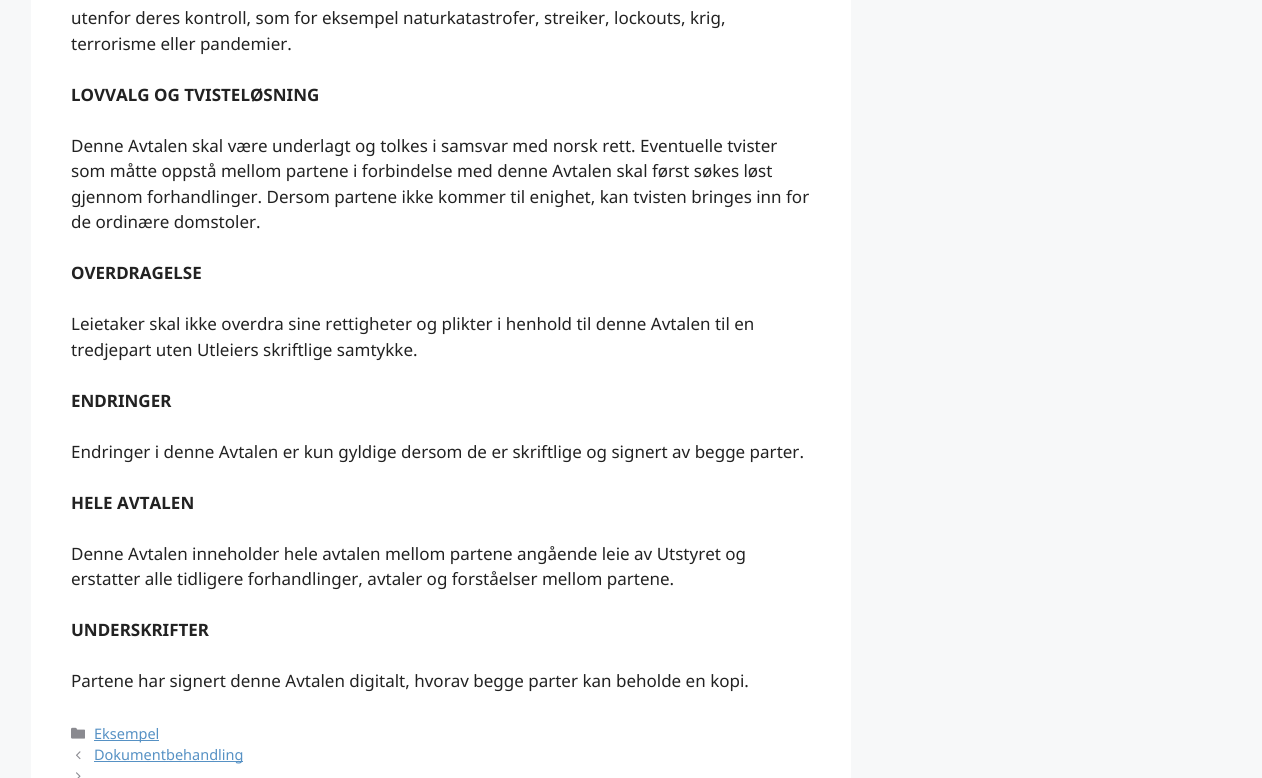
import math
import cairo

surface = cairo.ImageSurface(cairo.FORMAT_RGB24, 1262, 778)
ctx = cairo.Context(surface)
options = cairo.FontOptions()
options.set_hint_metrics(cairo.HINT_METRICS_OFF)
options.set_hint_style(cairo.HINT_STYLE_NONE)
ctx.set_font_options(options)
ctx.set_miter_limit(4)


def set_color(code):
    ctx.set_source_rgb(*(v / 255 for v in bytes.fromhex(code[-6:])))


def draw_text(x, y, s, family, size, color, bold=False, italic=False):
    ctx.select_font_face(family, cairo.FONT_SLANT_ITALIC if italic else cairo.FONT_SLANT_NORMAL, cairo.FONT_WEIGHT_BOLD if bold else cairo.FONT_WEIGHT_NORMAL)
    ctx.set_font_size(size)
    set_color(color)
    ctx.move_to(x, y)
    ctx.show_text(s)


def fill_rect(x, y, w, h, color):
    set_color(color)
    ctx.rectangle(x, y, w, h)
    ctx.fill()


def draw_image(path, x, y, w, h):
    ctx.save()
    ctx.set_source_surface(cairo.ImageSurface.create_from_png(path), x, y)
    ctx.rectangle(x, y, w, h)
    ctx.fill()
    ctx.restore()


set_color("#f7f8f9")
ctx.paint()
fill_rect(31, 0, 820, 778, "#ffffff")
draw_text(71, 24, "utenfor deres kontroll, som for eksempel naturkatastrofer, streiker, lockouts, krig,", "Noto Sans", 17, "#222222")
draw_text(71, 50, "terrorisme eller pandemier.", "Noto Sans", 17, "#222222")
draw_text(71, 101, "LOVVALG OG TVISTELØSNING", "Noto Sans", 17, "#222222", bold=True)
draw_text(71, 152, "Denne Avtalen skal være underlagt og tolkes i samsvar med norsk rett. Eventuelle tvister", "Noto Sans", 17, "#222222")
draw_text(71, 177, "som måtte oppstå mellom partene i forbindelse med denne Avtalen skal først søkes løst", "Noto Sans", 17, "#222222")
draw_text(71, 203, "gjennom forhandlinger. Dersom partene ikke kommer til enighet, kan tvisten bringes inn for", "Noto Sans", 17, "#222222")
draw_text(71, 228, "de ordinære domstoler.", "Noto Sans", 17, "#222222")
draw_text(71, 279, "OVERDRAGELSE", "Noto Sans", 17, "#222222", bold=True)
draw_text(71, 330, "Leietaker skal ikke overdra sine rettigheter og plikter i henhold til denne Avtalen til en", "Noto Sans", 17, "#222222")
draw_text(71, 356, "tredjepart uten Utleiers skriftlige samtykke.", "Noto Sans", 17, "#222222")
draw_text(71, 407, "ENDRINGER", "Noto Sans", 17, "#222222", bold=True)
draw_text(71, 458, "Endringer i denne Avtalen er kun gyldige dersom de er skriftlige og signert av begge parter.", "Noto Sans", 17, "#222222")
draw_text(71, 509, "HELE AVTALEN", "Noto Sans", 17, "#222222", bold=True)
draw_text(71, 560, "Denne Avtalen inneholder hele avtalen mellom partene angående leie av Utstyret og", "Noto Sans", 17, "#222222")
draw_text(71, 585, "erstatter alle tidligere forhandlinger, avtaler og forståelser mellom partene.", "Noto Sans", 17, "#222222")
draw_text(71, 636, "UNDERSKRIFTER", "Noto Sans", 17, "#222222", bold=True)
draw_text(71, 687, "Partene har signert denne Avtalen digitalt, hvorav begge parter kan beholde en kopi.", "Noto Sans", 17, "#222222")
draw_image("assets/img1.png", 71, 727, 14, 12)
fill_rect(94, 740, 65, 1, "#5691c4")
draw_text(94, 739, "Eksempel", "Noto Sans", 14.5, "#5691c4")
draw_image("assets/img2.png", 76, 751, 5, 9)
fill_rect(94, 761, 149, 1, "#5691c4")
draw_text(94, 760, "Dokumentbehandling", "Noto Sans", 14.5, "#5691c4")
draw_image("assets/img3.png", 76, 772, 5, 6)
surface.write_to_png("output.png")
